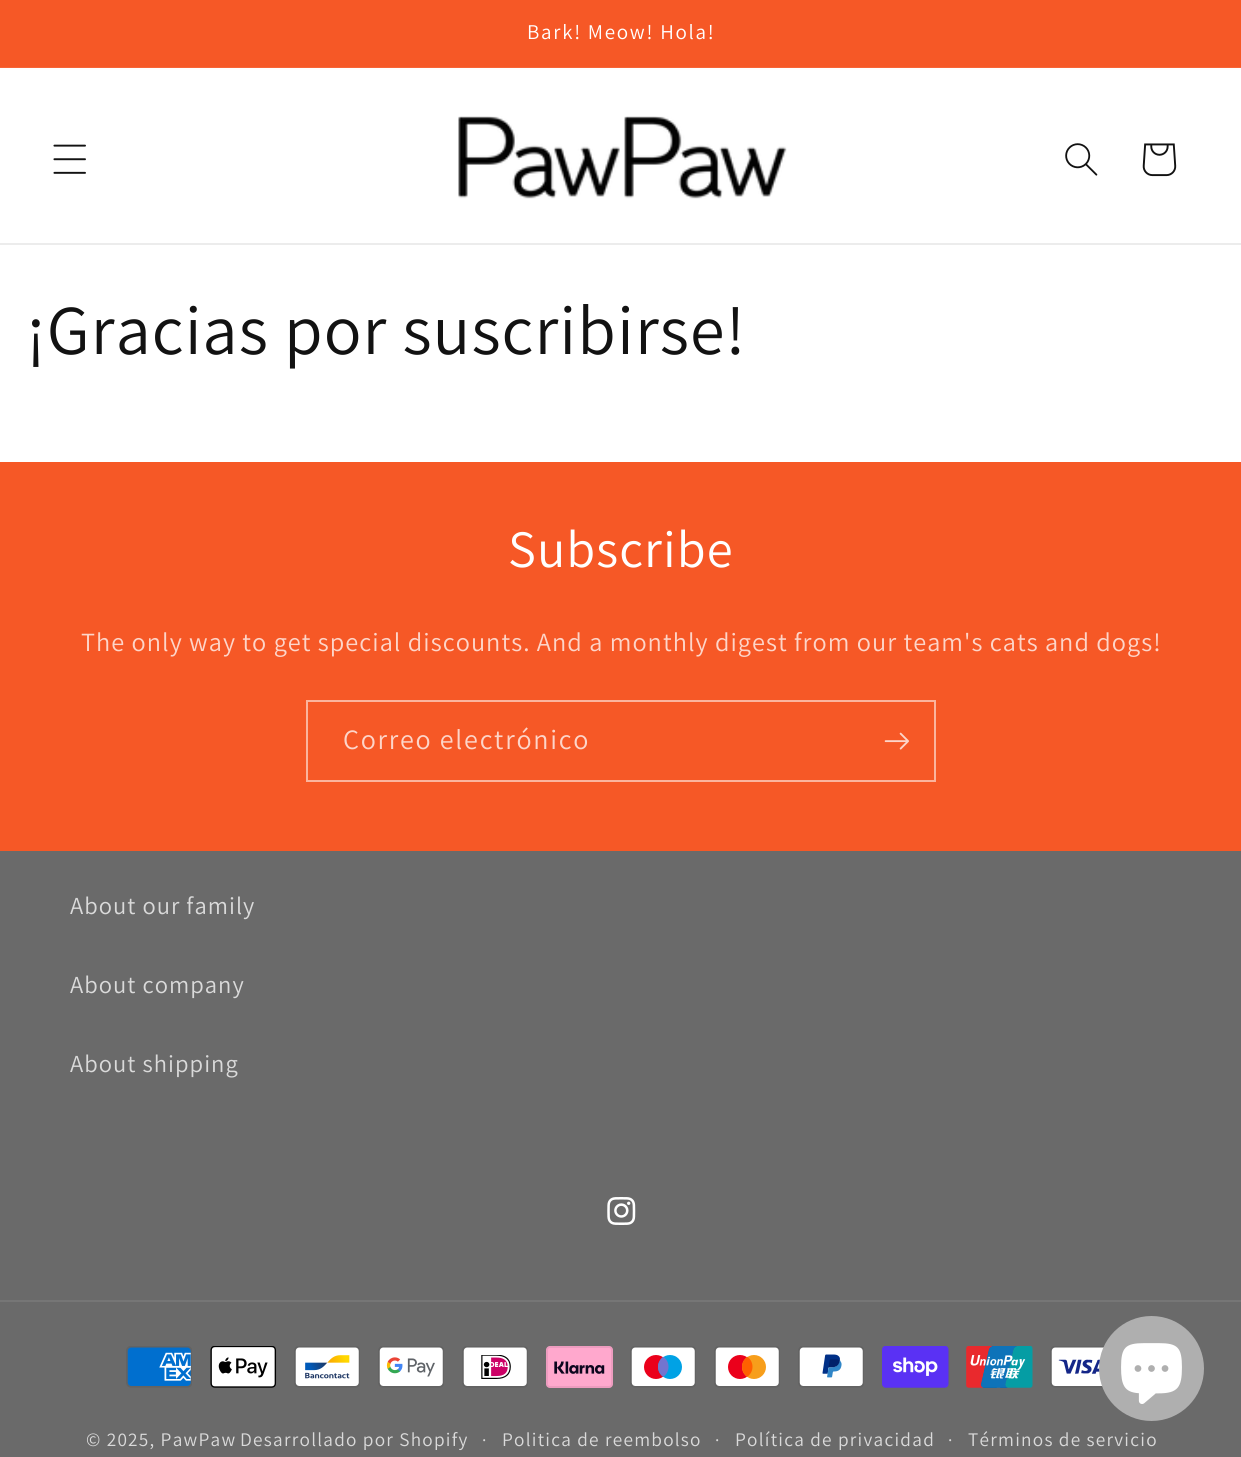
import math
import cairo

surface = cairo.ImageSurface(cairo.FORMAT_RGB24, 1241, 1457)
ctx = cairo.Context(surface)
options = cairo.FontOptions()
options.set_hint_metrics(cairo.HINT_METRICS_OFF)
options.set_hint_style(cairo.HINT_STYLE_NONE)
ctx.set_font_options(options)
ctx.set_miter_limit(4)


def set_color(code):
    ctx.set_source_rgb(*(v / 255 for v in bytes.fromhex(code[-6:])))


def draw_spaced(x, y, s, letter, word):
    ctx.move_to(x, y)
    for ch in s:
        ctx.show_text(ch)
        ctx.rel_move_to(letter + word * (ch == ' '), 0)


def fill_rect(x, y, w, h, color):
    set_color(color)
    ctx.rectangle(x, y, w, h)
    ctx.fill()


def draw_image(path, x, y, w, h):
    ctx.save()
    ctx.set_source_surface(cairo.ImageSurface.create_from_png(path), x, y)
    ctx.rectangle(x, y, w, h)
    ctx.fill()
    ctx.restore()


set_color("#ffffff")
ctx.paint()
fill_rect(0, 0, 1241, 67, "#f65826")
fill_rect(0, 67, 1241, 1, "#f76537")
ctx.select_font_face("Assistant")
ctx.set_font_size(21)
set_color("#ffffff")
draw_spaced(527, 39, "Bark! Meow! Hola!", 1.75, 0)
fill_rect(0, 243, 1241, 2, "#ececec")
draw_image("assets/img1.png", 53, 144, 33, 30)
draw_image("assets/img2.png", 458, 116, 329, 83)
draw_image("assets/img3.png", 1065, 143, 33, 33)
draw_image("assets/img4.png", 1142, 143, 35, 34)
ctx.set_font_size(70)
set_color("#121212")
draw_spaced(26, 354, "¡Gracias por suscribirse!", 1.05, 0)
fill_rect(0, 462, 1241, 389, "#f65826")
ctx.set_font_size(52.5)
set_color("#ffffff")
draw_spaced(508, 567, "Subscribe", 1.05, 0)
ctx.set_font_size(26.25)
set_color("#fdd5c9")
draw_spaced(81, 651, "The only way to get special discounts. And a monthly digest from our team's cats and dogs!", 1.05, 0)
ctx.rectangle(307, 701, 628, 80)
set_color("#fbb49d")
ctx.stroke()
ctx.set_font_size(28)
set_color("#fdd5c9")
draw_spaced(343, 749, "Correo electrónico", 1.75, 0)
draw_image("assets/img5.png", 884, 732, 25, 18)
fill_rect(0, 851, 1241, 606, "#6a6a6a")
ctx.set_font_size(24.5)
set_color("#dadada")
draw_spaced(70, 914, "About our family", 1.05, 0)
draw_spaced(70, 993, "About company", 1.05, 0)
draw_spaced(70, 1072, "About shipping", 1.05, 0)
draw_image("assets/img6.png", 607, 1197, 29, 28)
fill_rect(0, 1300, 1241, 2, "#767676")
draw_image("assets/img7.png", 126, 1346, 66, 42)
draw_image("assets/img8.png", 210, 1346, 67, 42)
draw_image("assets/img9.png", 294, 1346, 66, 42)
draw_image("assets/img10.png", 378, 1346, 66, 42)
draw_image("assets/img11.png", 462, 1346, 66, 42)
draw_image("assets/img12.png", 546, 1346, 67, 42)
draw_image("assets/img13.png", 630, 1346, 66, 42)
draw_image("assets/img14.png", 714, 1346, 66, 42)
draw_image("assets/img15.png", 798, 1346, 66, 42)
draw_image("assets/img16.png", 882, 1346, 67, 42)
draw_image("assets/img17.png", 966, 1346, 67, 42)
draw_image("assets/img18.png", 1050, 1346, 55, 42)
ctx.set_font_size(19.25)
set_color("#dadada")
draw_spaced(86, 1446, "© 2025, PawPaw", 1.25, 0)
draw_spaced(240, 1446, "Desarrollado por Shopify", 1.25, 0)
ctx.set_font_size(18)
draw_spaced(482, 1446, "·", 1.25, 0)
ctx.set_font_size(19.25)
draw_spaced(502, 1446, "Politica de reembolso", 1.25, 0)
ctx.set_font_size(18)
draw_spaced(715, 1446, "·", 1.25, 0)
ctx.set_font_size(19.25)
draw_spaced(735, 1446, "Política de privacidad", 1.25, 0)
ctx.set_font_size(18)
draw_spaced(948, 1446, "·", 1.25, 0)
ctx.set_font_size(19.25)
draw_spaced(968, 1446, "Términos de servicio", 1.25, 0)
set_color("#afafaf")
ctx.new_path()
ctx.arc(1151.5, 1368.5, 52.5, 0, 2 * math.pi)
ctx.fill()
draw_image("assets/img19.png", 1121, 1343, 61, 61)
surface.write_to_png("output.png")
